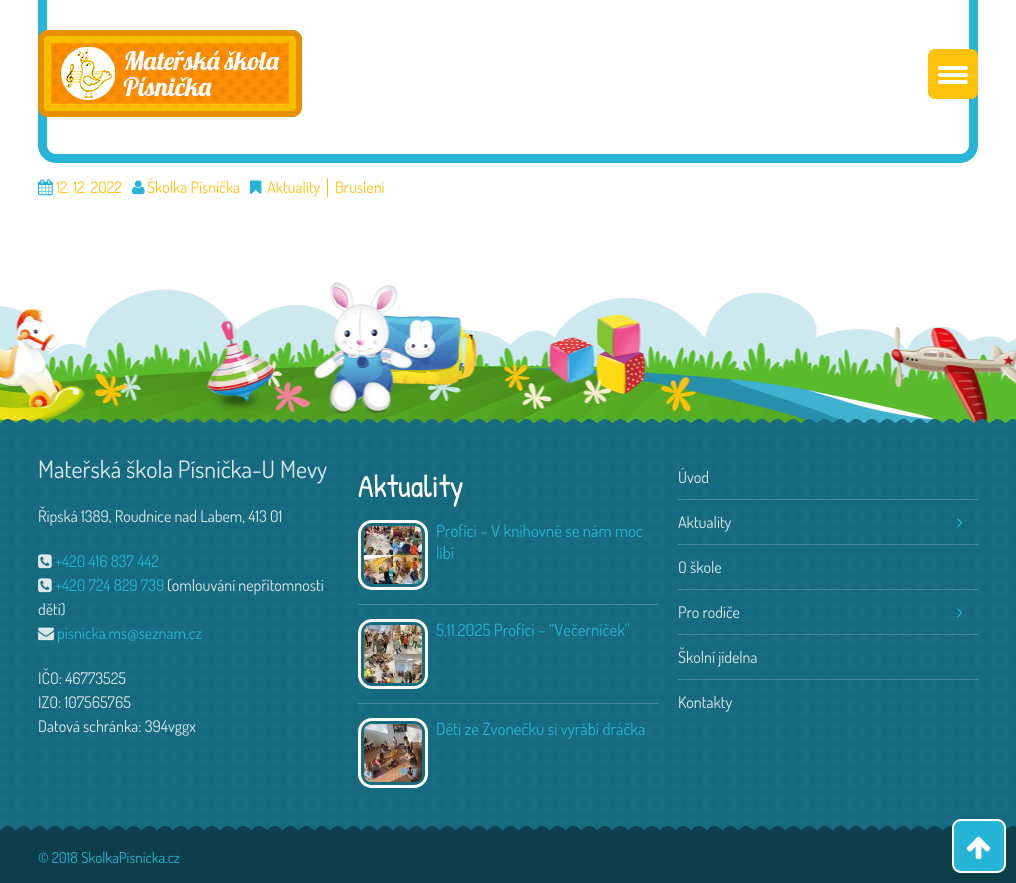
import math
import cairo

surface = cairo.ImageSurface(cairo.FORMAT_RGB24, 1016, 883)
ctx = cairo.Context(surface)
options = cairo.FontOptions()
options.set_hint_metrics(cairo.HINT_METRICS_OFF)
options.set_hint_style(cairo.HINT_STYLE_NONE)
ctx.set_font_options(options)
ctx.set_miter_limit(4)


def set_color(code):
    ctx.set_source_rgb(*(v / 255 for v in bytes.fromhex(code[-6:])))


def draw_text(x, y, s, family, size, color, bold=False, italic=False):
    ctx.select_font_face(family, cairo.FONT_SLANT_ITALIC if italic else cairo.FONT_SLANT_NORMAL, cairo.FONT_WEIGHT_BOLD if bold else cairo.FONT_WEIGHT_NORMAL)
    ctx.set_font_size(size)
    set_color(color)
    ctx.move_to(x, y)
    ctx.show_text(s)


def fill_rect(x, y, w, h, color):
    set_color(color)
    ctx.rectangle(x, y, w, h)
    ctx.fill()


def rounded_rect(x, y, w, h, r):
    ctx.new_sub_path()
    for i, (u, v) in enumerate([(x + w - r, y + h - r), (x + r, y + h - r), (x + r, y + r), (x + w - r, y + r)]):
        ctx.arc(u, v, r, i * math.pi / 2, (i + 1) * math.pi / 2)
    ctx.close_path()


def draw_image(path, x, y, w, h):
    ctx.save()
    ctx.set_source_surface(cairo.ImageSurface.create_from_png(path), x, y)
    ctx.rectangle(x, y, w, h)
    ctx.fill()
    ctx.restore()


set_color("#ffffff")
ctx.paint()
rounded_rect(42.5, -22.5, 931, 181, 13.5)
set_color("#26b4d7")
ctx.set_line_width(9)
ctx.stroke()
draw_image("assets/img1.png", 38, 30, 264, 87)
set_color("#fec20b")
rounded_rect(928, 49, 50, 50, 7)
ctx.fill()
set_color("#ffffff")
rounded_rect(938, 66, 30, 4, 2)
ctx.fill()
rounded_rect(938, 73, 30, 4, 2)
ctx.fill()
rounded_rect(938, 80, 30, 4, 2)
ctx.fill()
draw_image("assets/img2.png", 38, 179, 15, 17)
draw_text(56, 193, "12. 12. 2022", "Dosis", 16, "#fec20b")
draw_image("assets/img3.png", 132, 180, 13, 15)
ctx.save()
ctx.rectangle(38, 178, 940, 19)
ctx.clip()
draw_text(147, 193, "Školka Písnička", "Dosis", 16, "#fec20b")
ctx.restore()
draw_image("assets/img4.png", 250, 180, 12, 14)
draw_text(267, 193, "Aktuality", "Dosis", 16, "#fec20b")
fill_rect(327, 178, 1, 19, "#fec20b")
draw_text(335, 193, "Bruslení", "Dosis", 16, "#fec20b")
draw_image("assets/img5.png", 0, 282, 1016, 142)
fill_rect(0, 425, 1016, 458, "#26b4d7")
draw_image("assets/img6.png", 0, 428, 1016, 452)
draw_image("assets/img7.png", 0, 419, 1016, 6)
ctx.set_source_rgba(0, 0, 0, 0.4)
ctx.rectangle(0, 425, 1016, 406)
ctx.fill()
draw_text(38, 478, "Mateřská škola Písnička-U Mevy", "Dosis", 24, "#dce9ec")
draw_text(38, 522, "Řipská 1389, Roudnice nad Labem, 413 01", "Dosis", 16, "#dce9ec")
draw_image("assets/img8.png", 38, 554, 14, 15)
draw_text(55, 567, "+420 416 837 442", "Dosis", 16, "#26b4d7")
draw_image("assets/img8.png", 38, 578, 14, 15)
draw_text(55, 591, "+420 724 829 739", "Dosis", 16, "#26b4d7")
draw_text(167, 591, "(omlouvání nepřítomnosti", "Dosis", 16, "#dce9ec")
draw_text(38, 615, "dětí)", "Dosis", 16, "#dce9ec")
draw_image("assets/img9.png", 38, 627, 16, 14)
draw_text(57, 639, "pisnicka.ms@seznam.cz", "Dosis", 16, "#26b4d7")
draw_text(38, 684, "IČO: 46773525", "Dosis", 16, "#dce9ec")
draw_text(38, 708, "IZO: 107565765", "Dosis", 16, "#dce9ec")
draw_text(38, 732, "Datová schránka: 394vggx", "Dosis", 16, "#dce9ec")
draw_text(358, 497, "Aktuality", "Patrick Hand", 32, "#ffffff")
fill_rect(358, 604, 300, 1, "#45899a")
rounded_rect(359.5, 521.5, 67, 67, 12.5)
set_color("#ffffff")
ctx.set_line_width(3)
ctx.stroke()
draw_image("assets/img10.png", 364, 526, 58, 58)
draw_text(436, 537, "Profíci – V knihovně se nám moc", "Dosis", 16.8, "#26b4d7")
draw_text(436, 559, "líbí", "Dosis", 16.8, "#26b4d7")
fill_rect(358, 703, 300, 1, "#45899a")
rounded_rect(359.5, 620.5, 67, 67, 12.5)
set_color("#ffffff")
ctx.stroke()
draw_image("assets/img11.png", 364, 625, 58, 58)
draw_text(436, 636, "5.11.2025 Profíci – “Večerníček”", "Dosis", 16.8, "#26b4d7")
rounded_rect(359.5, 719.5, 67, 67, 12.5)
set_color("#ffffff")
ctx.stroke()
draw_image("assets/img12.png", 364, 724, 58, 58)
draw_text(436, 735, "Děti ze Zvonečku si vyrábí dráčka", "Dosis", 16.8, "#26b4d7")
draw_text(678, 483, "Úvod", "Dosis", 16, "#dce9ec")
fill_rect(678, 499, 300, 1, "#45899a")
draw_text(678, 528, "Aktuality", "Dosis", 16, "#dce9ec")
draw_image("assets/img13.png", 957, 518, 6, 10)
fill_rect(678, 544, 300, 1, "#45899a")
draw_text(678, 573, "O škole", "Dosis", 16, "#dce9ec")
ctx.set_source_rgba(1, 1, 1, 0.2)
ctx.rectangle(678, 589, 300, 1)
ctx.fill()
draw_text(678, 618, "Pro rodiče", "Dosis", 16, "#dce9ec")
draw_image("assets/img14.png", 957, 608, 6, 10)
ctx.set_source_rgba(1, 1, 1, 0.2)
ctx.rectangle(678, 634, 300, 1)
ctx.fill()
draw_text(678, 663, "Školní jídelna", "Dosis", 16, "#dce9ec")
fill_rect(678, 679, 300, 1, "#45899a")
draw_text(678, 708, "Kontakty", "Dosis", 16, "#dce9ec")
draw_image("assets/img15.png", 0, 826, 1016, 6)
ctx.set_source_rgba(0, 0, 0, 0.65)
ctx.rectangle(0, 832, 1016, 51)
ctx.fill()
draw_text(38, 863, "© 2018 SkolkaPisnicka.cz", "Dosis", 15, "#26b4d7")
rounded_rect(953, 820, 52, 52, 8)
ctx.fill_preserve()
set_color("#ffffff")
ctx.set_line_width(2)
ctx.stroke()
draw_image("assets/img16.png", 966, 836, 25, 23)
surface.write_to_png("output.png")
